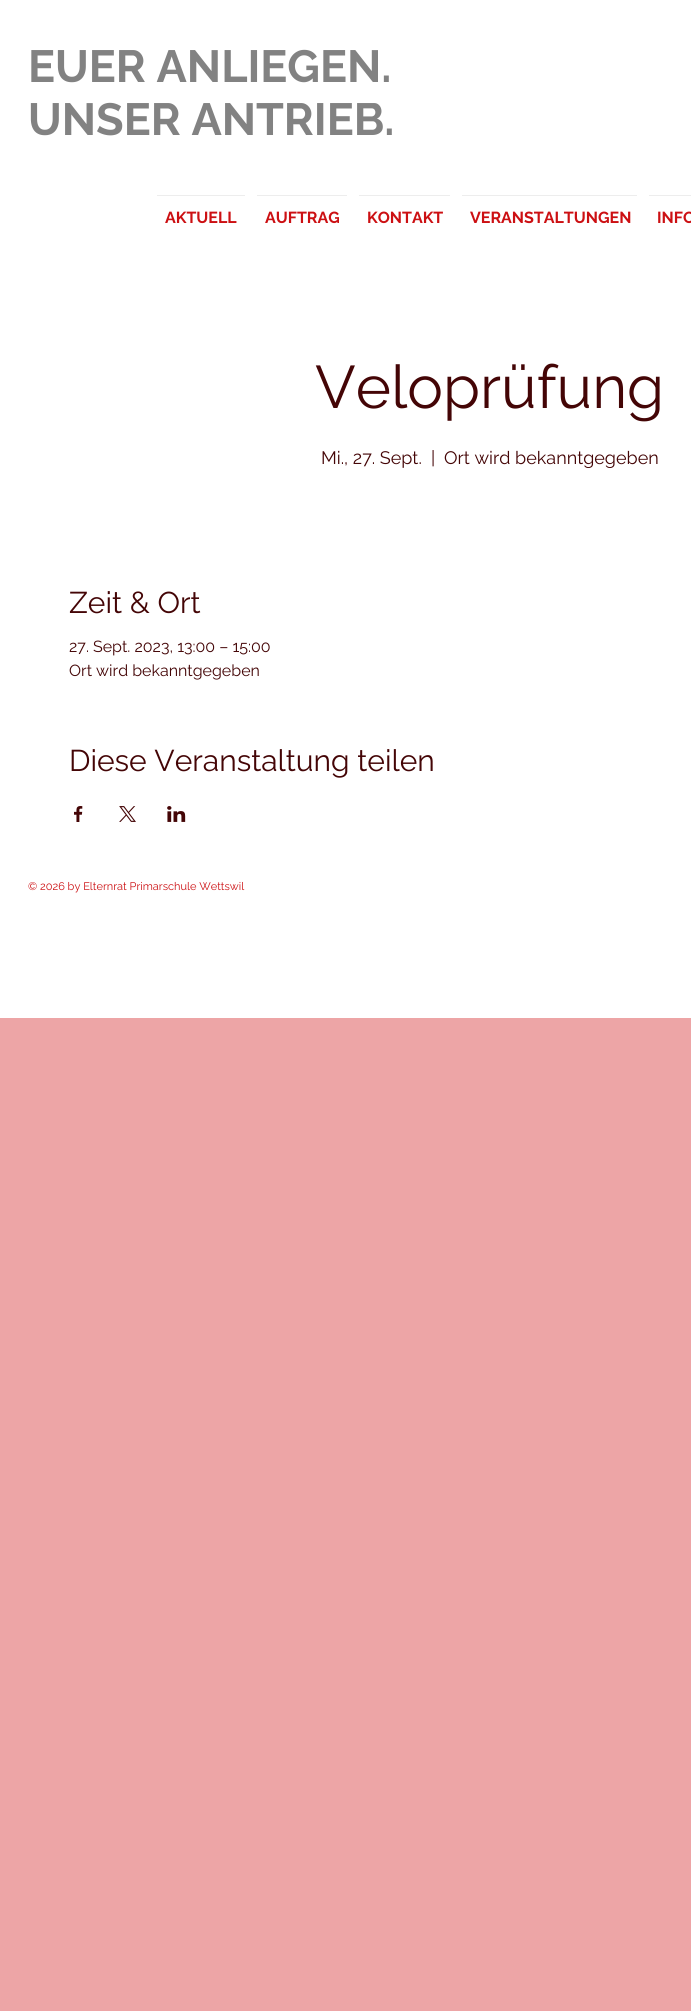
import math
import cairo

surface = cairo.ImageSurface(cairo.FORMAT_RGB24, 691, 2011)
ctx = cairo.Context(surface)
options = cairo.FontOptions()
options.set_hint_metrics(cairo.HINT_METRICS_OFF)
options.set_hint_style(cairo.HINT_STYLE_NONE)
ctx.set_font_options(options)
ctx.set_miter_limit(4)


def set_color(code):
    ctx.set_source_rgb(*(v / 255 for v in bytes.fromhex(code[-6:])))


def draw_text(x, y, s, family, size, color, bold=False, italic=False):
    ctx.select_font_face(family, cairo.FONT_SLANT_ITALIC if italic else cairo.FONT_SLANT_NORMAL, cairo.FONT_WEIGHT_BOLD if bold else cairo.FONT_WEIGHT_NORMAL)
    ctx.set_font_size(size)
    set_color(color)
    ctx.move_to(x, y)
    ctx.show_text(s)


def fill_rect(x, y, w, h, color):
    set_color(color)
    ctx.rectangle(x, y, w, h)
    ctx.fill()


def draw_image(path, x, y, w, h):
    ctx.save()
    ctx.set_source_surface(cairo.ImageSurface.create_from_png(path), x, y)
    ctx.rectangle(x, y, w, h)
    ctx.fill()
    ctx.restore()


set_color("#eda5a6")
ctx.paint()
fill_rect(0, 0, 691, 1018, "#ffffff")
draw_text(28, 82, "EUER ANLIEGEN.", "Raleway", 45, "#828282", bold=True)
draw_text(28, 135, "UNSER ANTRIEB.", "Raleway", 45, "#828282", bold=True)
fill_rect(157, 195, 88, 1, "#ededed")
draw_text(165, 223, "AKTUELL", "Raleway", 16, "#cc1013", bold=True)
fill_rect(257, 195, 90, 1, "#ededed")
draw_text(265, 223, "AUFTRAG", "Raleway", 16, "#cc1013", bold=True)
fill_rect(359, 195, 91, 1, "#ededed")
draw_text(367, 223, "KONTAKT", "Raleway", 16, "#cc1013", bold=True)
fill_rect(462, 195, 175, 1, "#ededed")
draw_text(470, 223, "VERANSTALTUNGEN", "Raleway", 16, "#cc1013", bold=True)
fill_rect(649, 195, 42, 1, "#ededed")
draw_text(657, 223, "INFO", "Raleway", 16, "#cc1013", bold=True)
draw_text(315, 408, "Veloprüfung", "Raleway", 60, "#440506")
draw_text(321, 464, "Mi., 27. Sept.", "Raleway", 18, "#440506")
draw_text(431, 464, "|", "Raleway", 18, "#440506")
draw_text(444, 464, "Ort wird bekanntgegeben", "Raleway", 18, "#440506")
draw_text(69, 613, "Zeit & Ort", "Raleway", 30, "#440506")
draw_text(69, 652, "27. Sept. 2023, 13:00 – 15:00", "Raleway", 16, "#440506")
draw_text(69, 676, "Ort wird bekanntgegeben", "Raleway", 16, "#440506")
draw_text(69, 771, "Diese Veranstaltung teilen", "Raleway", 30, "#440506")
draw_image("assets/img1.png", 74, 806, 9, 16)
draw_image("assets/img2.png", 119, 806, 17, 16)
draw_image("assets/img3.png", 167, 806, 19, 16)
draw_text(28, 890, "© 2026 by Elternrat Primarschule Wettswil", "Raleway", 11, "#cc1013")
surface.write_to_png("output.png")
